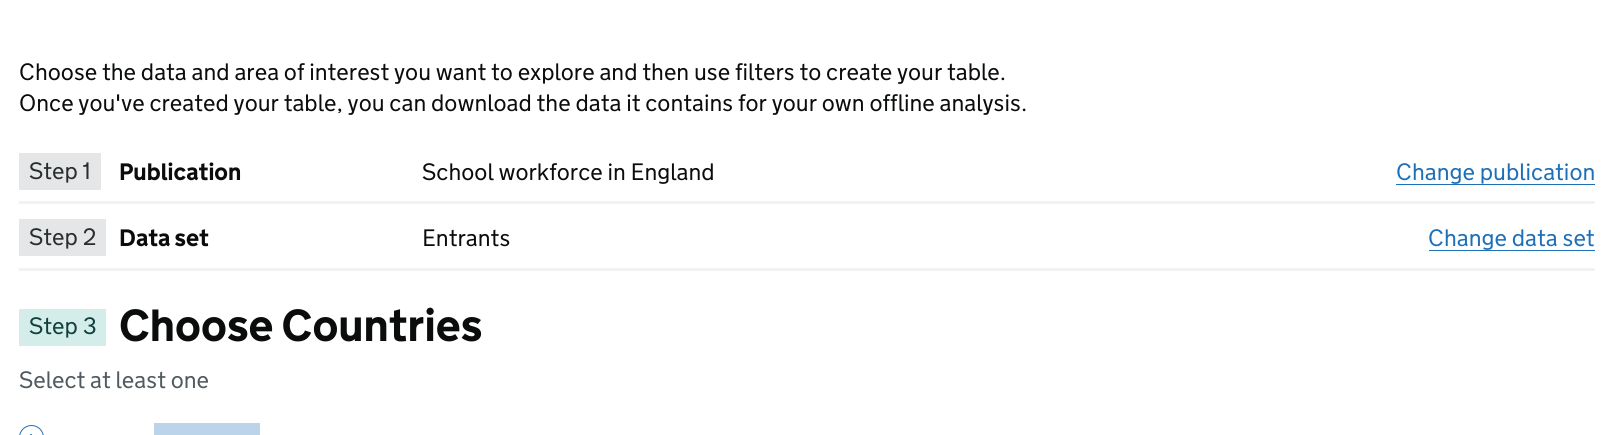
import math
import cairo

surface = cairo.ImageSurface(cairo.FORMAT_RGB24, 1613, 435)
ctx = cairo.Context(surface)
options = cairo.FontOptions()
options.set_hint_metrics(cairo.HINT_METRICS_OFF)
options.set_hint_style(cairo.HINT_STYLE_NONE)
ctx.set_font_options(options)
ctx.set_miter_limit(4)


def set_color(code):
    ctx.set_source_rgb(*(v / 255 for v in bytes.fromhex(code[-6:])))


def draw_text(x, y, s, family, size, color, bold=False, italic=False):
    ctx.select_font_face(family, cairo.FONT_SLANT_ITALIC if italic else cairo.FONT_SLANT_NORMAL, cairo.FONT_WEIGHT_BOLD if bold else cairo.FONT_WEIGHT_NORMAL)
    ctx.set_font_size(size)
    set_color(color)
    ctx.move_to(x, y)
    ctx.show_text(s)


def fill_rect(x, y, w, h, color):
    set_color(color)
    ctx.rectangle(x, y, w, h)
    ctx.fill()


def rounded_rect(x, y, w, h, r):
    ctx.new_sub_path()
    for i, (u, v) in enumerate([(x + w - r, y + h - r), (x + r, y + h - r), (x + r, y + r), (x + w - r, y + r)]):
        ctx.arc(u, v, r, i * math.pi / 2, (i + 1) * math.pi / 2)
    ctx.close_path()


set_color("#ffffff")
ctx.paint()
draw_text(19, 80, "Choose the data and area of interest you want to explore and then use filters to create your table.", "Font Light", 23.75, "#0b0c0c")
draw_text(19, 111, "Once you've created your table, you can download the data it contains for your own offline analysis.", "Font Light", 23.75, "#0b0c0c")
fill_rect(19, 201, 1576, 3, "#f3f2f1")
fill_rect(19, 153, 82, 37, "#e5e6e7")
draw_text(29, 179, "Step 1", "Font Light", 23.75, "#282d30")
draw_text(119, 180, "Publication", "Font", 23.75, "#0b0c0c", bold=True)
draw_text(422, 180, "School workforce in England", "Font Light", 23.75, "#0b0c0c")
draw_text(1396, 180, "Change publication", "Font Light", 23.75, "#1d70b8")
fill_rect(1396, 184, 199, 1, "#1d70b8")
fill_rect(19, 268, 1576, 3, "#f3f2f1")
fill_rect(19, 219, 87, 37, "#e5e6e7")
draw_text(29, 245, "Step 2", "Font Light", 23.75, "#282d30")
draw_text(119, 246, "Data set", "Font", 23.75, "#0b0c0c", bold=True)
draw_text(422, 246, "Entrants", "Font Light", 23.75, "#0b0c0c")
draw_text(1428, 246, "Change data set", "Font Light", 23.75, "#1d70b8")
fill_rect(1429, 250, 166, 1, "#1d70b8")
fill_rect(19, 309, 87, 37, "#d4ecea")
draw_text(29, 334, "Step 3", "Font Light", 23.75, "#10403c")
draw_text(119, 341, "Choose Countries", "Font", 45, "#0b0c0c", bold=True)
draw_text(19, 388, "Select at least one", "Font Light", 23.75, "#505a5f")
rounded_rect(19.5, 425.5, 24, 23, 12)
set_color("#1d70b8")
ctx.set_line_width(1)
ctx.stroke()
ctx.new_path()
ctx.move_to(26, 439)
ctx.line_to(31, 434)
ctx.line_to(33, 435.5)
ctx.line_to(27.5, 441)
ctx.close_path()
ctx.fill()
ctx.new_path()
ctx.move_to(29.5, 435.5)
ctx.line_to(31, 434)
ctx.line_to(36.5, 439)
ctx.line_to(35, 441)
ctx.close_path()
ctx.fill()
fill_rect(154, 423, 106, 12, "#bbd4ea")
surface.write_to_png("output.png")
